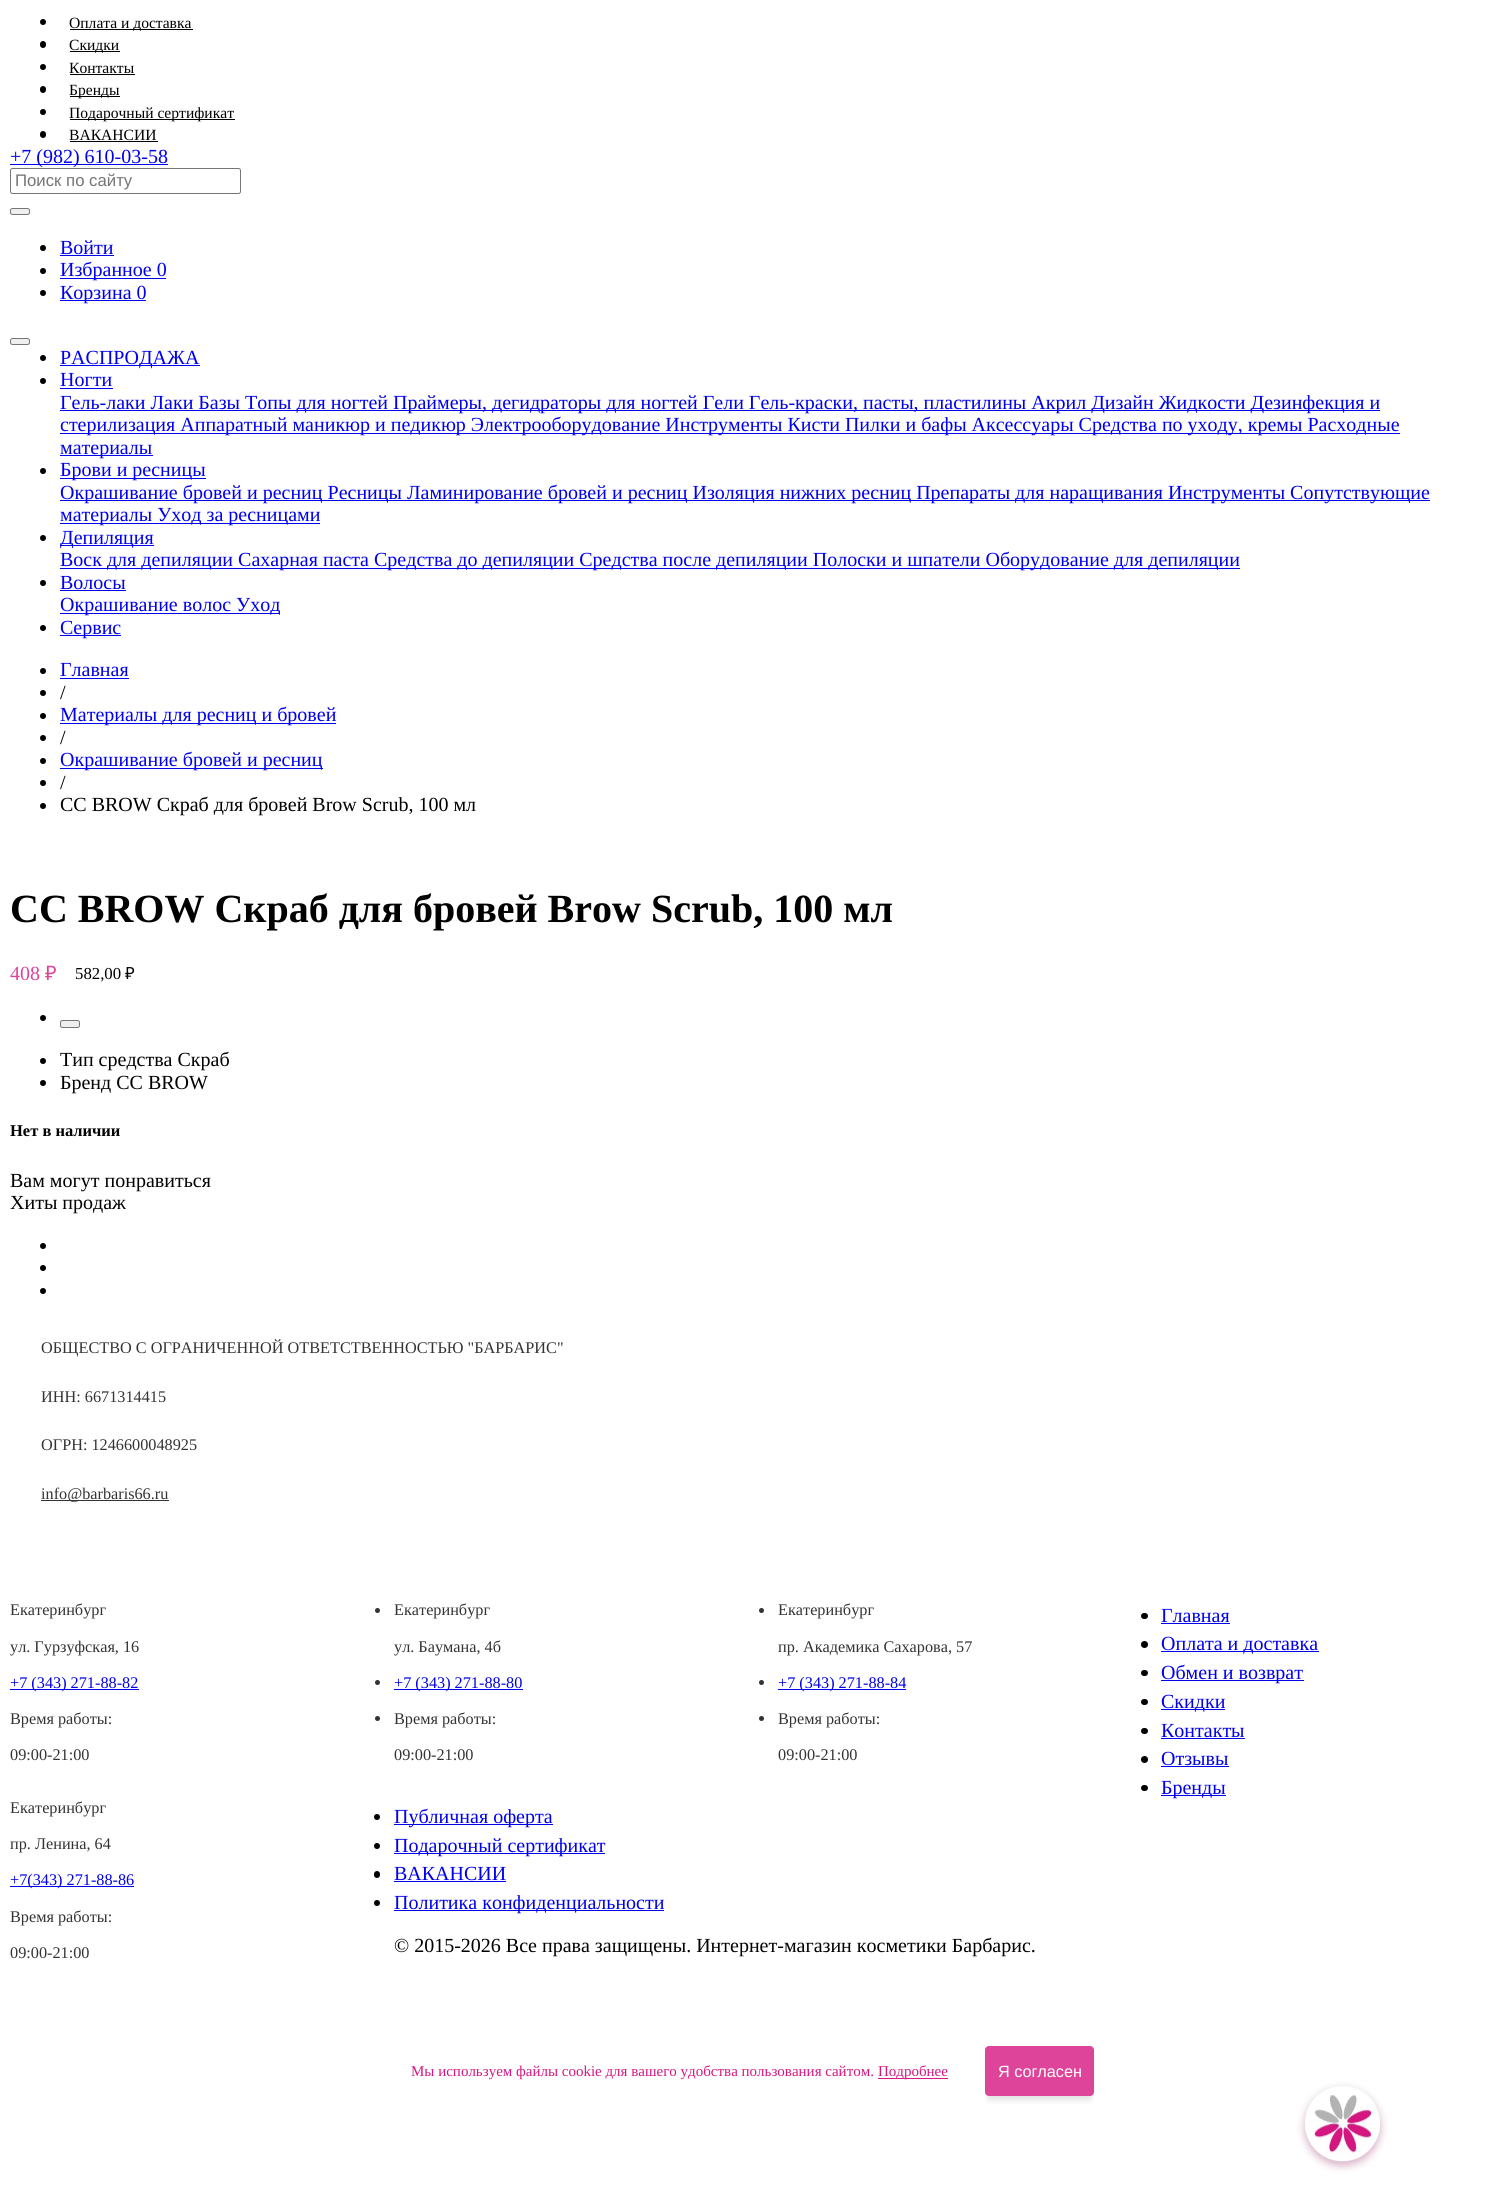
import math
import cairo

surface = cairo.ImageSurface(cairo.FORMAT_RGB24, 1505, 2192)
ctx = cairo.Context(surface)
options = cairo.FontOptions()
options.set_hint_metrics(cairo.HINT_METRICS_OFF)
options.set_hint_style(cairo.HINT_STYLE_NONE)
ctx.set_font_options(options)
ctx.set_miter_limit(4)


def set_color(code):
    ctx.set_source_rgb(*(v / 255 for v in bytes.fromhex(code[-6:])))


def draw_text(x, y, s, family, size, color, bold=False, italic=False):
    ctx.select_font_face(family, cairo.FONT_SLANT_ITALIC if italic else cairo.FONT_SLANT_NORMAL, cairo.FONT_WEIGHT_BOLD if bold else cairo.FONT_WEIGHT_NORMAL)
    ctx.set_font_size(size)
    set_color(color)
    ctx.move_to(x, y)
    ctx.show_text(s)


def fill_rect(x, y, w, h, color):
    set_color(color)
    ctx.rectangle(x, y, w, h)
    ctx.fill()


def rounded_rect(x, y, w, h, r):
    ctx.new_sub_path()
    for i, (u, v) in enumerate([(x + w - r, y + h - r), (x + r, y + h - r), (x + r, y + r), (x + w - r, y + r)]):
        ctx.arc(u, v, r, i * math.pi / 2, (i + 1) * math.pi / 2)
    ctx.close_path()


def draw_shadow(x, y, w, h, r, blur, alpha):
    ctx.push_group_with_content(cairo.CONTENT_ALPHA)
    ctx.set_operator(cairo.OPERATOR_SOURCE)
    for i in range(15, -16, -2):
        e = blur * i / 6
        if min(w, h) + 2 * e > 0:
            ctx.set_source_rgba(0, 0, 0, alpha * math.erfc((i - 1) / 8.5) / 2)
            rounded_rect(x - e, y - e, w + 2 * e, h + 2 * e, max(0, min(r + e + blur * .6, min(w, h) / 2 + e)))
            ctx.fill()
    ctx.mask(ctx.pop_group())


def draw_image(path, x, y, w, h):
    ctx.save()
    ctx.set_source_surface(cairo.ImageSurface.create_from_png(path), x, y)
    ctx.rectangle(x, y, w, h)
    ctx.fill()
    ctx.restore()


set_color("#ffffff")
ctx.paint()
set_color("#000000")
ctx.arc(43, 22, 3, 0, 2 * math.pi)
ctx.fill()
fill_rect(70, 29, 123, 1, "#000000")
draw_text(69, 28, "Оплата и доставка", "Liberation Serif", 15.6, "#000000")
rounded_rect(40, 41, 6, 7, 3)
ctx.fill()
fill_rect(70, 51, 50, 1, "#000000")
draw_text(69, 50, "Скидки", "Liberation Serif", 15.6, "#000000")
ctx.new_path()
ctx.arc(43, 67, 3, 0, 2 * math.pi)
ctx.fill()
draw_text(69, 73, "Контакты", "Liberation Serif", 15.6, "#000000")
fill_rect(70, 74, 65, 1, "#000000")
rounded_rect(40, 86, 6, 7, 3)
ctx.fill()
fill_rect(70, 96, 50, 1, "#000000")
draw_text(69, 95, "Бренды", "Liberation Serif", 15.6, "#000000")
ctx.new_path()
ctx.arc(43, 112, 3, 0, 2 * math.pi)
ctx.fill()
fill_rect(70, 119, 165, 1, "#000000")
draw_text(69, 118, "Подарочный сертификат", "Liberation Serif", 15.6, "#000000")
rounded_rect(40, 131, 6, 7, 3)
ctx.fill()
draw_text(69, 140, "ВАКАНСИИ", "Liberation Serif", 15.6, "#000000")
fill_rect(70, 141, 88, 1, "#000000")
fill_rect(10, 164, 158, 1, "#0000ee")
draw_text(10, 163, "+7 (982) 610-03-58", "Liberation Serif", 20, "#0000ee")
rounded_rect(10.5, 168.5, 230, 25, 2)
set_color("#767676")
ctx.set_line_width(1)
ctx.stroke()
draw_text(15, 186, "Поиск по сайту", "Liberation Sans", 16.75, "#757575")
set_color("#efefef")
rounded_rect(10.5, 208.5, 19, 6, 2)
ctx.fill_preserve()
set_color("#767676")
ctx.stroke()
set_color("#000000")
ctx.arc(43, 248, 3, 0, 2 * math.pi)
ctx.fill()
draw_text(60, 254, "Войти", "Liberation Serif", 20, "#0000ee")
fill_rect(60, 255, 54, 1, "#0000ee")
set_color("#000000")
ctx.new_path()
ctx.arc(43, 271, 3, 0, 2 * math.pi)
ctx.fill()
fill_rect(60, 278, 106, 1, "#0000ee")
draw_text(60, 276, "Избранное 0", "Liberation Serif", 20, "#0000ee")
set_color("#000000")
ctx.new_path()
ctx.arc(43, 293, 3, 0, 2 * math.pi)
ctx.fill()
fill_rect(60, 300, 86, 1, "#0000ee")
draw_text(60, 299, "Корзина 0", "Liberation Serif", 20, "#0000ee")
set_color("#efefef")
rounded_rect(10.5, 338.5, 19, 6, 2)
ctx.fill_preserve()
set_color("#767676")
ctx.stroke()
set_color("#000000")
ctx.arc(43, 358, 3, 0, 2 * math.pi)
ctx.fill()
fill_rect(60, 365, 140, 1, "#0000ee")
draw_text(60, 364, "РАСПРОДАЖА", "Liberation Serif", 20, "#0000ee")
set_color("#000000")
ctx.new_path()
ctx.arc(43, 381, 3, 0, 2 * math.pi)
ctx.fill()
draw_text(60, 386, "Ногти", "Liberation Serif", 20, "#0000ee")
fill_rect(60, 388, 53, 1, "#0000ee")
fill_rect(60, 410, 1320, 1, "#0000ee")
draw_text(60, 409, "Гель-лаки Лаки Базы Топы для ногтей Праймеры, дегидраторы для ногтей Гели Гель-краски, пасты, пластилины Акрил Дизайн Жидкости Дезинфекция и", "Liberation Serif", 20, "#0000ee")
fill_rect(60, 433, 1340, 1, "#0000ee")
draw_text(60, 431, "стерилизация Аппаратный маникюр и педикюр Электрооборудование Инструменты Кисти Пилки и бафы Аксессуары Средства по уходу, кремы Расходные", "Liberation Serif", 20, "#0000ee")
fill_rect(60, 455, 93, 1, "#0000ee")
draw_text(60, 454, "материалы", "Liberation Serif", 20, "#0000ee")
set_color("#000000")
ctx.new_path()
ctx.arc(43, 471, 3, 0, 2 * math.pi)
ctx.fill()
fill_rect(60, 478, 146, 1, "#0000ee")
draw_text(60, 476, "Брови и ресницы", "Liberation Serif", 20, "#0000ee")
fill_rect(60, 500, 1370, 1, "#0000ee")
draw_text(60, 499, "Окрашивание бровей и ресниц Ресницы Ламинирование бровей и ресниц Изоляция нижних ресниц Препараты для наращивания Инструменты Сопутствующие", "Liberation Serif", 20, "#0000ee")
fill_rect(60, 523, 260, 1, "#0000ee")
draw_text(60, 521, "материалы Уход за ресницами", "Liberation Serif", 20, "#0000ee")
set_color("#000000")
ctx.new_path()
ctx.arc(43, 538, 3, 0, 2 * math.pi)
ctx.fill()
fill_rect(60, 545, 94, 1, "#0000ee")
draw_text(60, 544, "Депиляция", "Liberation Serif", 20, "#0000ee")
fill_rect(60, 568, 1180, 1, "#0000ee")
draw_text(60, 566, "Воск для депиляции Сахарная паста Средства до депиляции Средства после депиляции Полоски и шпатели Оборудование для депиляции", "Liberation Serif", 20, "#0000ee")
set_color("#000000")
ctx.new_path()
ctx.arc(43, 583, 3, 0, 2 * math.pi)
ctx.fill()
draw_text(60, 589, "Волосы", "Liberation Serif", 20, "#0000ee")
fill_rect(60, 590, 66, 1, "#0000ee")
fill_rect(60, 613, 220, 1, "#0000ee")
draw_text(60, 611, "Окрашивание волос Уход", "Liberation Serif", 20, "#0000ee")
set_color("#000000")
ctx.new_path()
ctx.arc(43, 628, 3, 0, 2 * math.pi)
ctx.fill()
fill_rect(60, 635, 61, 1, "#0000ee")
draw_text(60, 634, "Сервис", "Liberation Serif", 20, "#0000ee")
set_color("#000000")
ctx.new_path()
ctx.arc(43, 671, 3, 0, 2 * math.pi)
ctx.fill()
draw_text(60, 676, "Главная", "Liberation Serif", 20, "#0000ee")
fill_rect(60, 678, 69, 1, "#0000ee")
set_color("#000000")
ctx.new_path()
ctx.arc(43, 693, 3, 0, 2 * math.pi)
ctx.fill()
draw_text(60, 699, "/", "Liberation Serif", 20, "#000000")
ctx.new_path()
ctx.arc(43, 716, 3, 0, 2 * math.pi)
ctx.fill()
fill_rect(60, 723, 276, 1, "#0000ee")
draw_text(60, 721, "Материалы для ресниц и бровей", "Liberation Serif", 20, "#0000ee")
set_color("#000000")
ctx.new_path()
ctx.arc(43, 738, 3, 0, 2 * math.pi)
ctx.fill()
draw_text(60, 744, "/", "Liberation Serif", 20, "#000000")
ctx.new_path()
ctx.arc(43, 761, 3, 0, 2 * math.pi)
ctx.fill()
fill_rect(60, 768, 263, 1, "#0000ee")
draw_text(60, 766, "Окрашивание бровей и ресниц", "Liberation Serif", 20, "#0000ee")
set_color("#000000")
ctx.new_path()
ctx.arc(43, 783, 3, 0, 2 * math.pi)
ctx.fill()
draw_text(60, 789, "/", "Liberation Serif", 20, "#000000")
ctx.new_path()
ctx.arc(43, 806, 3, 0, 2 * math.pi)
ctx.fill()
draw_text(60, 811, "CC BROW Скраб для бровей Brow Scrub, 100 мл", "Liberation Serif", 20, "#000000")
draw_text(10, 922, "CC BROW Скраб для бровей Brow Scrub, 100 мл", "Liberation Serif", 40, "#000000", bold=True)
draw_text(10, 980, "408", "Liberation Serif", 20, "#de459a")
draw_text(45, 980, "₽", "Noto Sans", 20, "#de459a")
draw_text(75, 979, "582,00", "Liberation Serif", 16.75, "#000000")
draw_text(125, 979, "₽", "Noto Sans", 16.75, "#000000")
ctx.new_path()
ctx.arc(43, 1018, 3, 0, 2 * math.pi)
ctx.fill()
set_color("#efefef")
rounded_rect(60.5, 1020.5, 19, 7, 2)
ctx.fill_preserve()
set_color("#767676")
ctx.stroke()
set_color("#000000")
ctx.arc(43, 1061, 3, 0, 2 * math.pi)
ctx.fill()
draw_text(60, 1066, "Тип средства Скраб", "Liberation Serif", 20, "#000000")
ctx.new_path()
ctx.arc(43, 1083, 3, 0, 2 * math.pi)
ctx.fill()
draw_text(60, 1089, "Бренд CC BROW", "Liberation Serif", 20, "#000000")
draw_text(10, 1136, "Нет в наличии", "Liberation Serif", 16.5, "#000000", bold=True)
draw_text(10, 1187, "Вам могут понравиться", "Liberation Serif", 20, "#000000")
draw_text(10, 1209, "Хиты продаж", "Liberation Serif", 20, "#000000")
ctx.new_path()
ctx.arc(43, 1246, 3, 0, 2 * math.pi)
ctx.fill()
ctx.arc(43, 1268, 3, 0, 2 * math.pi)
ctx.fill()
ctx.arc(43, 1291, 3, 0, 2 * math.pi)
ctx.fill()
draw_text(41, 1353, "ОБЩЕСТВО С ОГРАНИЧЕННОЙ ОТВЕТСТВЕННОСТЬЮ \"БАРБАРИС\"", "Liberation Serif", 16.25, "#333333")
draw_text(41, 1402, "ИНН: 6671314415", "Liberation Serif", 16.25, "#333333")
draw_text(41, 1450, "ОГРН: 1246600048925", "Liberation Serif", 16.25, "#333333")
fill_rect(41, 1500, 128, 1, "#333333")
draw_text(41, 1499, "info@barbaris66.ru", "Liberation Serif", 16.25, "#333333")
draw_text(10, 1615, "Екатеринбург", "Liberation Serif", 16.25, "#333333")
draw_text(10, 1652, "ул. Гурзуфская, 16", "Liberation Serif", 16.25, "#333333")
fill_rect(10, 1689, 129, 1, "#0000ee")
draw_text(10, 1688, "+7 (343) 271-88-82", "Liberation Serif", 16.25, "#0000ee")
draw_text(10, 1724, "Время работы:", "Liberation Serif", 16.25, "#333333")
draw_text(10, 1760, "09:00-21:00", "Liberation Serif", 16.25, "#333333")
ctx.new_path()
ctx.arc(377.5, 1610.5, 2.5, 0, 2 * math.pi)
ctx.fill()
draw_text(394, 1615, "Екатеринбург", "Liberation Serif", 16.25, "#333333")
draw_text(394, 1652, "ул. Баумана, 4б", "Liberation Serif", 16.25, "#333333")
ctx.new_path()
ctx.arc(377.5, 1682.5, 2.5, 0, 2 * math.pi)
ctx.fill()
fill_rect(394, 1689, 129, 1, "#0000ee")
draw_text(394, 1688, "+7 (343) 271-88-80", "Liberation Serif", 16.25, "#0000ee")
set_color("#333333")
ctx.new_path()
ctx.arc(377.5, 1718.5, 2.5, 0, 2 * math.pi)
ctx.fill()
draw_text(394, 1724, "Время работы:", "Liberation Serif", 16.25, "#333333")
draw_text(394, 1760, "09:00-21:00", "Liberation Serif", 16.25, "#333333")
ctx.new_path()
ctx.arc(761.5, 1610.5, 2.5, 0, 2 * math.pi)
ctx.fill()
draw_text(778, 1615, "Екатеринбург", "Liberation Serif", 16.25, "#333333")
draw_text(778, 1652, "пр. Академика Сахарова, 57", "Liberation Serif", 16.25, "#333333")
ctx.new_path()
ctx.arc(761.5, 1682.5, 2.5, 0, 2 * math.pi)
ctx.fill()
fill_rect(778, 1689, 128, 1, "#0000ee")
draw_text(778, 1688, "+7 (343) 271-88-84", "Liberation Serif", 16.25, "#0000ee")
set_color("#333333")
ctx.new_path()
ctx.arc(761.5, 1718.5, 2.5, 0, 2 * math.pi)
ctx.fill()
draw_text(778, 1724, "Время работы:", "Liberation Serif", 16.25, "#333333")
draw_text(778, 1760, "09:00-21:00", "Liberation Serif", 16.25, "#333333")
draw_text(10, 1813, "Екатеринбург", "Liberation Serif", 16.25, "#333333")
draw_text(10, 1849, "пр. Ленина, 64", "Liberation Serif", 16.25, "#333333")
fill_rect(10, 1886, 124, 1, "#0000ee")
draw_text(10, 1885, "+7(343) 271-88-86", "Liberation Serif", 16.25, "#0000ee")
draw_text(10, 1922, "Время работы:", "Liberation Serif", 16.25, "#333333")
draw_text(10, 1958, "09:00-21:00", "Liberation Serif", 16.25, "#333333")
set_color("#000000")
rounded_rect(1141, 1613, 7, 6, 3)
ctx.fill()
draw_text(1161, 1622, "Главная", "Liberation Serif", 20, "#0000ee")
fill_rect(1161, 1623, 69, 1, "#0000ee")
set_color("#000000")
ctx.new_path()
ctx.arc(1144.5, 1644.5, 3.5, 0, 2 * math.pi)
ctx.fill()
fill_rect(1161, 1651, 158, 1, "#0000ee")
draw_text(1161, 1650, "Оплата и доставка", "Liberation Serif", 20, "#0000ee")
set_color("#000000")
rounded_rect(1141, 1670, 7, 6, 3)
ctx.fill()
fill_rect(1161, 1680, 143, 1, "#0000ee")
draw_text(1161, 1679, "Обмен и возврат", "Liberation Serif", 20, "#0000ee")
set_color("#000000")
rounded_rect(1141, 1699, 7, 6, 3)
ctx.fill()
fill_rect(1161, 1709, 64, 1, "#0000ee")
draw_text(1161, 1708, "Скидки", "Liberation Serif", 20, "#0000ee")
set_color("#000000")
rounded_rect(1141, 1728, 7, 6, 3)
ctx.fill()
draw_text(1161, 1737, "Контакты", "Liberation Serif", 20, "#0000ee")
fill_rect(1161, 1738, 84, 1, "#0000ee")
set_color("#000000")
ctx.new_path()
ctx.arc(1144.5, 1759.5, 3.5, 0, 2 * math.pi)
ctx.fill()
draw_text(1161, 1765, "Отзывы", "Liberation Serif", 20, "#0000ee")
fill_rect(1161, 1766, 68, 1, "#0000ee")
set_color("#000000")
rounded_rect(1141, 1785, 7, 6, 3)
ctx.fill()
fill_rect(1161, 1795, 65, 1, "#0000ee")
draw_text(1161, 1794, "Бренды", "Liberation Serif", 20, "#0000ee")
set_color("#000000")
ctx.new_path()
ctx.arc(377, 1817, 3, 0, 2 * math.pi)
ctx.fill()
fill_rect(394, 1824, 159, 1, "#0000ee")
draw_text(394, 1823, "Публичная оферта", "Liberation Serif", 20, "#0000ee")
set_color("#000000")
ctx.new_path()
ctx.arc(377, 1846, 3, 0, 2 * math.pi)
ctx.fill()
fill_rect(394, 1853, 211, 1, "#0000ee")
draw_text(394, 1852, "Подарочный сертификат", "Liberation Serif", 20, "#0000ee")
set_color("#000000")
rounded_rect(374, 1871, 6, 7, 3)
ctx.fill()
draw_text(394, 1880, "ВАКАНСИИ", "Liberation Serif", 20, "#0000ee")
fill_rect(394, 1881, 112, 1, "#0000ee")
set_color("#000000")
ctx.new_path()
ctx.arc(377, 1903, 3, 0, 2 * math.pi)
ctx.fill()
fill_rect(394, 1910, 270, 1, "#0000ee")
draw_text(394, 1909, "Политика конфиденциальности", "Liberation Serif", 20, "#0000ee")
draw_text(394, 1952, "© 2015-2026 Все права защищены. Интернет-магазин косметики Барбарис.", "Liberation Serif", 20, "#000000")
draw_text(411, 2076, "Мы используем файлы cookie для вашего удобства пользования сайтом.", "Liberation Serif", 15, "#d61681")
fill_rect(878, 2078, 70, 1, "#d61681")
draw_text(878, 2076, "Подробнее", "Liberation Serif", 15, "#d61681")
set_color("#000000")
draw_shadow(988, 2055, 103, 45, 1, 3, 0.12)
set_color("#de459a")
rounded_rect(985, 2046, 109, 50, 4)
ctx.fill()
draw_text(998, 2077, "Я согласен", "Liberation Sans", 16.25, "#ffffff")
set_color("#d61681")
draw_shadow(1305, 2091, 75, 75, 37.5, 4, 0.2)
set_color("#000000")
draw_shadow(1305, 2089, 75, 75, 37.5, 5, 0.15)
set_color("#ffffff")
ctx.arc(1342.5, 2123.5, 37.5, 0, 2 * math.pi)
ctx.fill()
draw_image("assets/img1.png", 1305, 2095, 75, 67)
surface.write_to_png("output.png")
